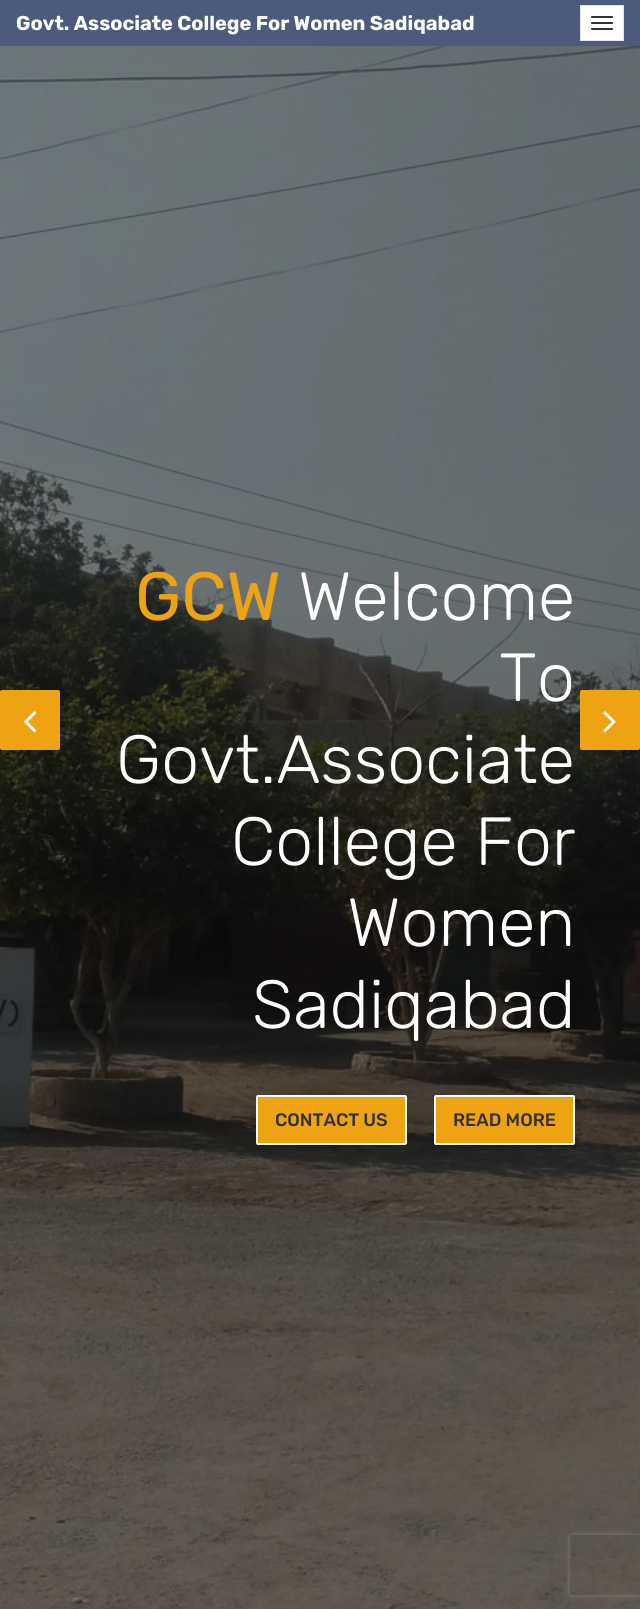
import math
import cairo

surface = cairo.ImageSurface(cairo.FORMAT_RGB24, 640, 1609)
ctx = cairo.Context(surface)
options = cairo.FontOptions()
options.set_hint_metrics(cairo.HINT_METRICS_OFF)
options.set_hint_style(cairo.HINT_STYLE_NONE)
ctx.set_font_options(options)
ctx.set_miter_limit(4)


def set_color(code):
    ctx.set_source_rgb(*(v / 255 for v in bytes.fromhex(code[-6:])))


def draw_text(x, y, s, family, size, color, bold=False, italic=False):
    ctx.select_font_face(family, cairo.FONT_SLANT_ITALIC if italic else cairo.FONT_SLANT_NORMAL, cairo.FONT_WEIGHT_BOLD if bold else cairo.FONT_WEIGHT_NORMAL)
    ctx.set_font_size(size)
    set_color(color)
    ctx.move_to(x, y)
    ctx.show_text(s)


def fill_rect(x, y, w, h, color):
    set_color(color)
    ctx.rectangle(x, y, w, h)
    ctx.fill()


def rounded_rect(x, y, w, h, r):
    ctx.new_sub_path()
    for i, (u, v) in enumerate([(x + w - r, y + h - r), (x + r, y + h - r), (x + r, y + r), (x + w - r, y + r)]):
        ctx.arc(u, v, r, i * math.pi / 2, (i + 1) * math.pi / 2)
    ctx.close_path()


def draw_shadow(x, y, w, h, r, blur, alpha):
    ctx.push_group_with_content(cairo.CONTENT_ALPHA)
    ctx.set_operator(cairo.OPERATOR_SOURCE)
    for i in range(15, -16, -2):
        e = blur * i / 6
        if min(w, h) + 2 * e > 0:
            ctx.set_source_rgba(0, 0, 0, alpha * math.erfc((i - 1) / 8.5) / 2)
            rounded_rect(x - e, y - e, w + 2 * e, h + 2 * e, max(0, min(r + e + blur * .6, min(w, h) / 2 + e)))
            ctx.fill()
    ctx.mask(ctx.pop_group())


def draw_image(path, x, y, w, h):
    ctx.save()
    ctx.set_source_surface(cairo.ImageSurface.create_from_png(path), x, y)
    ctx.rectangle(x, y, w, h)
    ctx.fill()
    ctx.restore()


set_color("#4c5a7d")
ctx.paint()
draw_text(16, 30, "Govt. Associate College For Women Sadiqabad", "Rubik", 20, "#ffffff", bold=True)
ctx.rectangle(580.5, 5.5, 43, 35)
ctx.fill_preserve()
set_color("#e6e6e6")
ctx.set_line_width(1)
ctx.stroke()
set_color("#333333")
rounded_rect(591, 16, 22, 2, 1)
ctx.fill()
rounded_rect(591, 22, 22, 2, 1)
ctx.fill()
rounded_rect(591, 28, 22, 2, 1)
ctx.fill()
draw_image("assets/img2.png", 0, 46, 640, 1563)
set_color("#eea412")
rounded_rect(0, 690, 60, 60, 2)
ctx.fill()
draw_image("assets/img1.png", 24, 711, 13, 22)
draw_text(135, 620, "GCW", "Rubik", 68, "#eea412")
draw_text(298, 620, "Welcome", "Rubik Light", 68, "#ffffff")
draw_text(499, 701, "To", "Rubik Light", 68, "#ffffff")
draw_text(116, 783, "Govt.Associate", "Rubik Light", 68, "#ffffff")
draw_text(231, 865, "College For", "Rubik Light", 68, "#ffffff")
draw_text(347, 946, "Women", "Rubik Light", 68, "#ffffff")
draw_text(252, 1028, "Sadiqabad", "Rubik Light", 68, "#ffffff")
rounded_rect(257, 1096, 149, 48, 1)
ctx.set_line_width(2)
ctx.stroke()
fill_rect(258, 1097, 147, 46, "#eea412")
draw_text(275, 1126, "CONTACT US", "Rubik Medium", 18, "#333333")
rounded_rect(435, 1096, 139, 48, 1)
set_color("#ffffff")
ctx.stroke()
fill_rect(436, 1097, 137, 46, "#eea412")
draw_text(453, 1126, "READ MORE", "Rubik Medium", 18, "#333333")
set_color("#eea412")
rounded_rect(580, 690, 60, 60, 2)
ctx.fill()
draw_image("assets/img3.png", 603, 711, 13, 22)
ctx.save()
ctx.set_fill_rule(cairo.FILL_RULE_EVEN_ODD)
ctx.new_path()
ctx.move_to(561, 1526)
ctx.line_to(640, 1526)
ctx.line_to(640, 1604)
ctx.line_to(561, 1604)
ctx.close_path()
ctx.move_to(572, 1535)
ctx.line_to(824, 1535)
ctx.curve_to(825, 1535, 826, 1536, 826, 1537)
ctx.line_to(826, 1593)
ctx.curve_to(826, 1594, 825, 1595, 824, 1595)
ctx.line_to(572, 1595)
ctx.curve_to(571, 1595, 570, 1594, 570, 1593)
ctx.line_to(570, 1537)
ctx.curve_to(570, 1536, 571, 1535, 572, 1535)
ctx.close_path()
ctx.clip()
set_color("#808080")
draw_shadow(570, 1535, 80, 60, 2, 2.5, 1)
ctx.restore()
surface.write_to_png("output.png")
